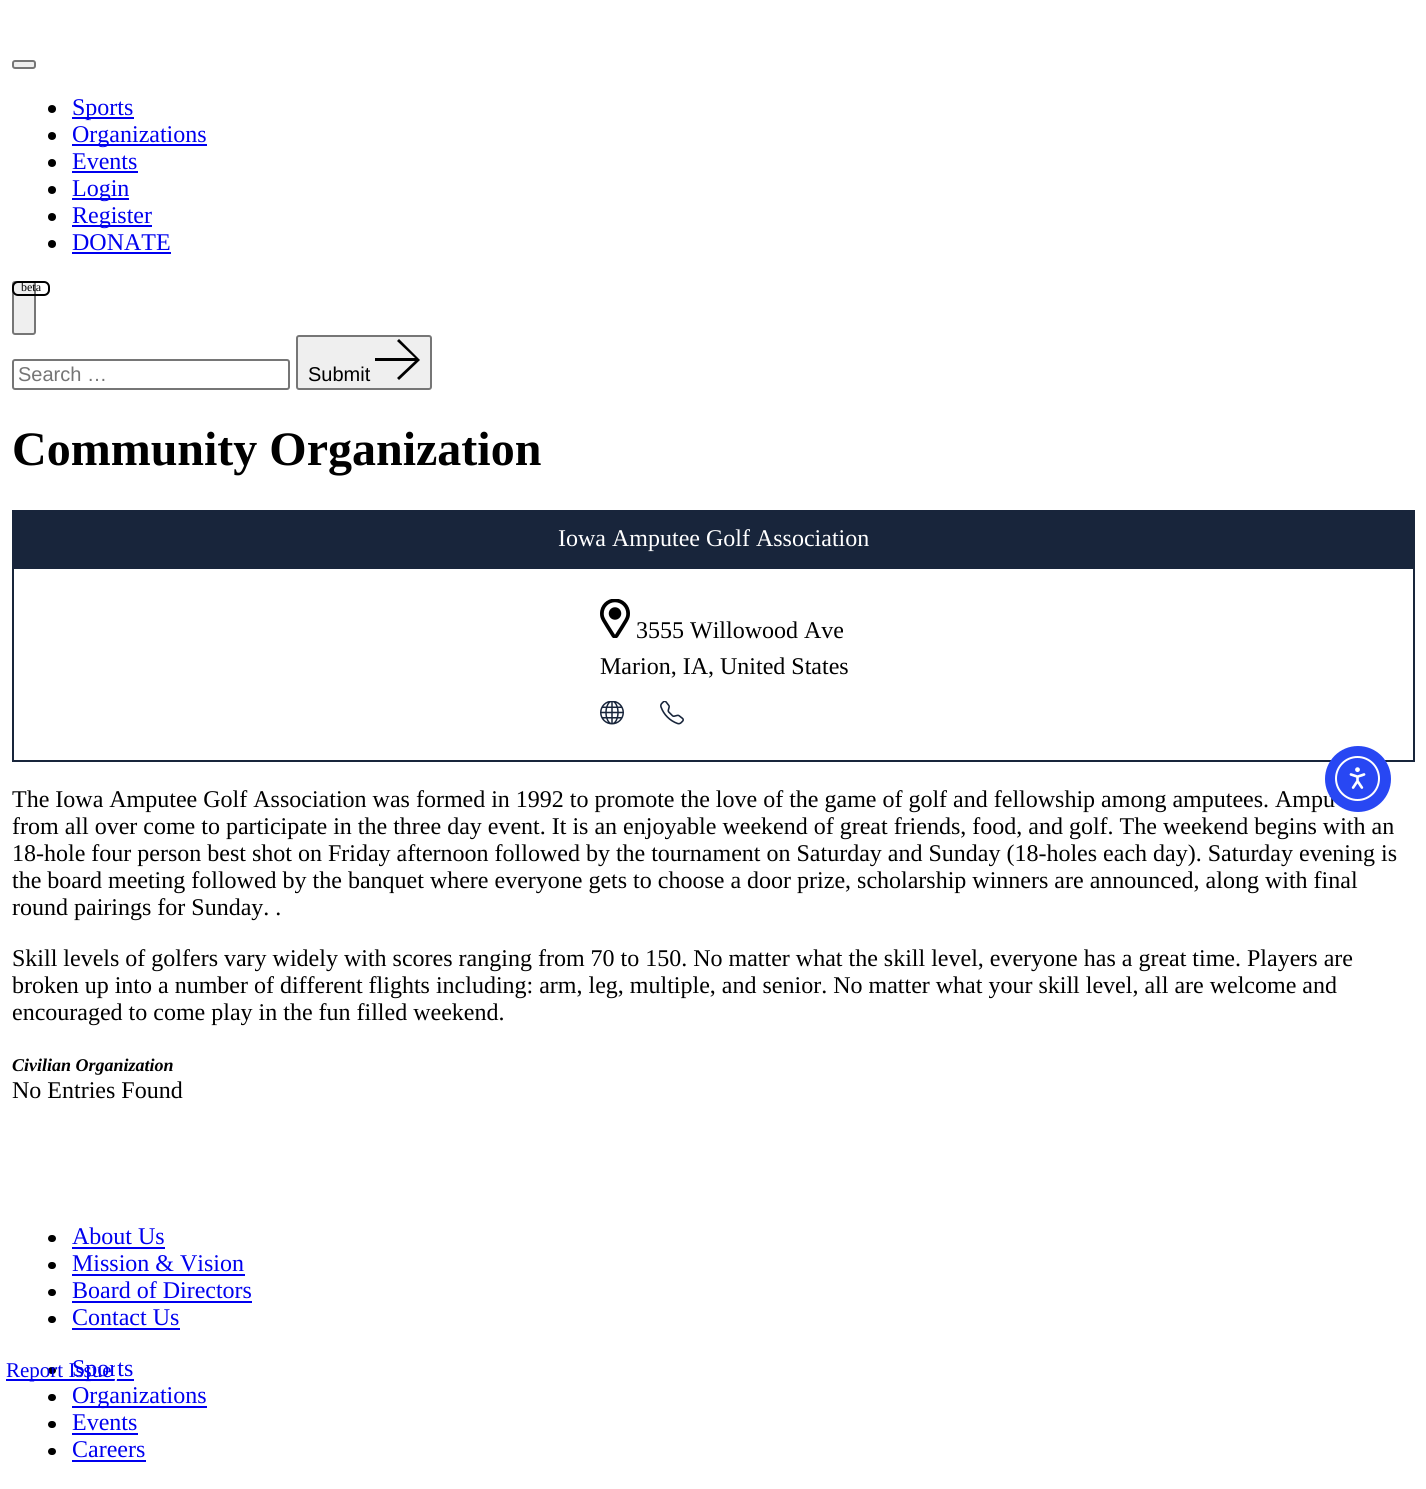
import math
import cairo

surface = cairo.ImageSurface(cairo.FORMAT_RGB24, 1426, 1489)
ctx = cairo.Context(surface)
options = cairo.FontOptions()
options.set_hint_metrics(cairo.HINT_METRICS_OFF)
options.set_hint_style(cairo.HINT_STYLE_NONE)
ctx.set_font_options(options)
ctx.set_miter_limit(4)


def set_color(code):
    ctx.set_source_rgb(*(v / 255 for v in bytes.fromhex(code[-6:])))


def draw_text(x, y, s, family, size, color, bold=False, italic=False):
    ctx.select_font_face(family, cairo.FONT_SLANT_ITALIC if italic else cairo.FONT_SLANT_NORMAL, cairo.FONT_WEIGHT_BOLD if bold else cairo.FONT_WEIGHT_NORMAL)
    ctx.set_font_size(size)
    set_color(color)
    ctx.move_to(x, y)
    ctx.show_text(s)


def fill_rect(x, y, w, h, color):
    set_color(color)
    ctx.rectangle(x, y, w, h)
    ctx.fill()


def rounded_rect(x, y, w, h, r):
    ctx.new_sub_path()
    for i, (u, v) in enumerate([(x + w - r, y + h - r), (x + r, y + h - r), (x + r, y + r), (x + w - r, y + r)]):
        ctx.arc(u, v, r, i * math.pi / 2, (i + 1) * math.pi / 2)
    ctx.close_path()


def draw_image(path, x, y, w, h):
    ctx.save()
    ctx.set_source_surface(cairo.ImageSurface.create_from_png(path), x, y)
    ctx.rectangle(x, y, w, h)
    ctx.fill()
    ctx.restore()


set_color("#ffffff")
ctx.paint()
set_color("#efefef")
rounded_rect(13, 61, 22, 7, 2)
ctx.fill_preserve()
set_color("#767676")
ctx.stroke()
set_color("#000000")
ctx.arc(52, 109, 4, 0, 2 * math.pi)
ctx.fill()
fill_rect(72, 117, 62, 2, "#0000ee")
draw_text(72, 115, "Sports", "Liberation Serif", 24, "#0000ee")
set_color("#000000")
ctx.new_path()
ctx.arc(52, 136, 4, 0, 2 * math.pi)
ctx.fill()
fill_rect(72, 144, 135, 2, "#0000ee")
draw_text(72, 142, "Organizations", "Liberation Serif", 24, "#0000ee")
set_color("#000000")
ctx.new_path()
ctx.arc(52, 163, 4, 0, 2 * math.pi)
ctx.fill()
draw_text(72, 169, "Events", "Liberation Serif", 24, "#0000ee")
fill_rect(72, 171, 66, 2, "#0000ee")
set_color("#000000")
ctx.new_path()
ctx.arc(52, 190, 4, 0, 2 * math.pi)
ctx.fill()
fill_rect(72, 198, 57, 2, "#0000ee")
draw_text(72, 196, "Login", "Liberation Serif", 24, "#0000ee")
set_color("#000000")
ctx.new_path()
ctx.arc(52, 217, 4, 0, 2 * math.pi)
ctx.fill()
fill_rect(72, 225, 80, 2, "#0000ee")
draw_text(72, 223, "Register", "Liberation Serif", 24, "#0000ee")
set_color("#000000")
ctx.new_path()
ctx.arc(52, 244, 4, 0, 2 * math.pi)
ctx.fill()
draw_text(72, 250, "DONATE", "Liberation Serif", 24, "#0000ee")
fill_rect(72, 252, 99, 2, "#0000ee")
set_color("#efefef")
rounded_rect(13, 282, 22, 52, 2)
ctx.fill_preserve()
set_color("#767676")
ctx.stroke()
rounded_rect(13, 282, 36, 13, 5)
set_color("#000000")
ctx.stroke()
draw_text(21, 291, "beta", "Liberation Serif", 12, "#000000")
rounded_rect(13, 360, 276, 29, 2)
set_color("#767676")
ctx.stroke()
draw_text(18, 381, "Search …", "Liberation Sans", 20, "#757575")
set_color("#efefef")
rounded_rect(297, 336, 134, 53, 2)
ctx.fill_preserve()
set_color("#767676")
ctx.stroke()
draw_text(308, 381, "Submit", "Liberation Sans", 20, "#000000")
ctx.new_path()
ctx.move_to(399, 339)
ctx.line_to(420, 360)
ctx.line_to(399, 380)
ctx.line_to(397, 378)
ctx.line_to(415, 361)
ctx.line_to(375, 361)
ctx.line_to(375, 358)
ctx.line_to(415, 358)
ctx.line_to(397, 341)
ctx.close_path()
ctx.fill()
draw_text(12, 465, "Community Organization", "Liberation Serif", 48, "#000000", bold=True)
fill_rect(12, 510, 1403, 57, "#18253b")
draw_text(558, 546, "Iowa Amputee Golf Association", "Liberation Serif", 24, "#ffffff")
ctx.rectangle(13, 568, 1401, 193)
set_color("#18253b")
ctx.stroke()
draw_image("assets/img1.png", 600, 599, 30, 39)
draw_text(636, 638, "3555 Willowood Ave", "Liberation Serif", 24, "#000000")
draw_text(600, 674, "Marion, IA, United States", "Liberation Serif", 24, "#000000")
draw_image("assets/img2.png", 600, 701, 24, 24)
draw_image("assets/img3.png", 660, 701, 24, 24)
draw_text(12, 807, "The Iowa Amputee Golf Association was formed in 1992 to promote the love of the game of golf and fellowship among amputees. Ampu", "Liberation Serif", 24, "#000000")
draw_text(12, 834, "from all over come to participate in the three day event. It is an enjoyable weekend of great friends, food, and golf. The weekend begins with an", "Liberation Serif", 24, "#000000")
draw_text(12, 861, "18-hole four person best shot on Friday afternoon followed by the tournament on Saturday and Sunday (18-holes each day). Saturday evening is", "Liberation Serif", 24, "#000000")
draw_text(12, 888, "the board meeting followed by the banquet where everyone gets to choose a door prize, scholarship winners are announced, along with final", "Liberation Serif", 24, "#000000")
draw_text(12, 915, "round pairings for Sunday. .", "Liberation Serif", 24, "#000000")
draw_text(12, 966, "Skill levels of golfers vary widely with scores ranging from 70 to 150. No matter what the skill level, everyone has a great time. Players are", "Liberation Serif", 24, "#000000")
draw_text(12, 993, "broken up into a number of different flights including: arm, leg, multiple, and senior. No matter what your skill level, all are welcome and", "Liberation Serif", 24, "#000000")
draw_text(12, 1020, "encouraged to come play in the fun filled weekend.", "Liberation Serif", 24, "#000000")
draw_text(12, 1071, "Civilian Organization", "Liberation Serif", 18, "#000000", bold=True, italic=True)
draw_text(12, 1098, "No Entries Found", "Liberation Serif", 24, "#000000")
rounded_rect(48, 1235, 8, 7, 3.5)
ctx.fill()
draw_text(72, 1244, "About Us", "Liberation Serif", 24, "#0000ee")
fill_rect(72, 1247, 93, 2, "#0000ee")
set_color("#000000")
rounded_rect(48, 1262, 8, 7, 3.5)
ctx.fill()
draw_text(72, 1271, "Mission & Vision", "Liberation Serif", 24, "#0000ee")
fill_rect(72, 1274, 173, 2, "#0000ee")
set_color("#000000")
rounded_rect(48, 1289, 8, 7, 3.5)
ctx.fill()
draw_text(72, 1298, "Board of Directors", "Liberation Serif", 24, "#0000ee")
fill_rect(72, 1301, 180, 2, "#0000ee")
set_color("#000000")
rounded_rect(48, 1316, 8, 7, 3.5)
ctx.fill()
draw_text(72, 1325, "Contact Us", "Liberation Serif", 24, "#0000ee")
fill_rect(72, 1328, 108, 2, "#0000ee")
set_color("#000000")
rounded_rect(48, 1367, 8, 7, 3.5)
ctx.fill()
fill_rect(111, 1379, 23, 2, "#0000ee")
draw_text(72, 1376, "Sports", "Liberation Serif", 24, "#0000ee")
rounded_rect(1, 1359, 115, 25, 5)
set_color("#ffffff")
ctx.stroke()
fill_rect(6, 1379, 105, 2, "#0000ee")
draw_text(6, 1377, "Report Issue", "Liberation Serif", 21, "#0000ee")
set_color("#000000")
rounded_rect(48, 1394, 8, 7, 3.5)
ctx.fill()
fill_rect(72, 1406, 135, 2, "#0000ee")
draw_text(72, 1403, "Organizations", "Liberation Serif", 24, "#0000ee")
set_color("#000000")
rounded_rect(48, 1421, 8, 7, 3.5)
ctx.fill()
draw_text(72, 1430, "Events", "Liberation Serif", 24, "#0000ee")
fill_rect(72, 1433, 66, 2, "#0000ee")
set_color("#000000")
rounded_rect(48, 1448, 8, 7, 3.5)
ctx.fill()
draw_text(72, 1457, "Careers", "Liberation Serif", 24, "#0000ee")
fill_rect(72, 1460, 74, 2, "#0000ee")
set_color("#2847f3")
ctx.new_path()
ctx.arc(1358, 779, 33, 0, 2 * math.pi)
ctx.fill()
ctx.arc(1357.5, 778.5, 21.5, 0, 2 * math.pi)
set_color("#ffffff")
ctx.stroke()
draw_image("assets/img4.png", 1349, 767, 17, 22)
surface.write_to_png("output.png")
